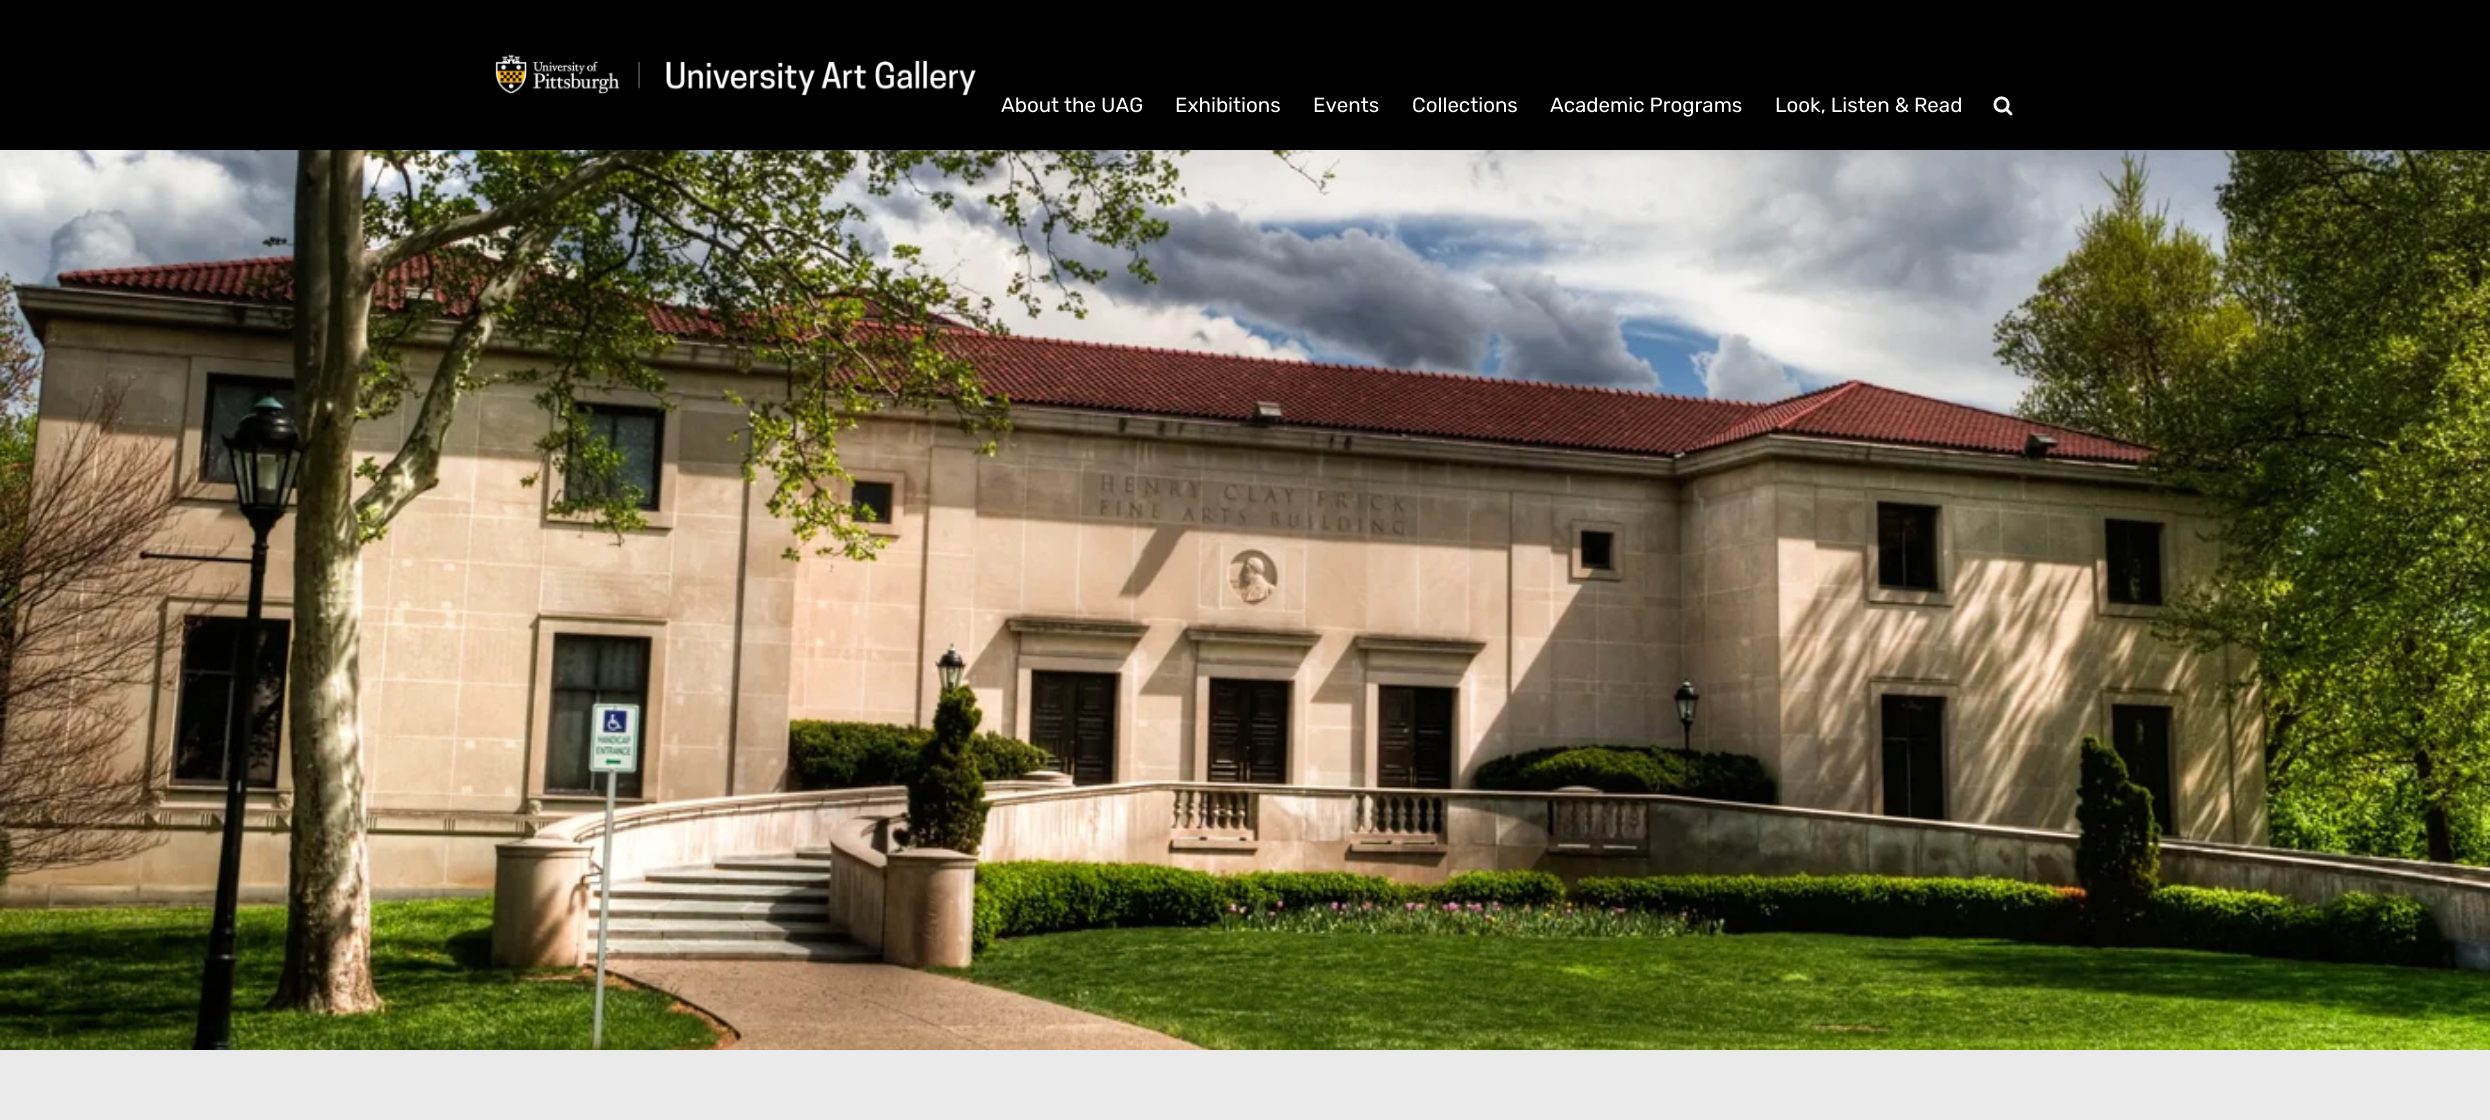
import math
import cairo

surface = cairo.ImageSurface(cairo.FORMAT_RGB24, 2490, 1120)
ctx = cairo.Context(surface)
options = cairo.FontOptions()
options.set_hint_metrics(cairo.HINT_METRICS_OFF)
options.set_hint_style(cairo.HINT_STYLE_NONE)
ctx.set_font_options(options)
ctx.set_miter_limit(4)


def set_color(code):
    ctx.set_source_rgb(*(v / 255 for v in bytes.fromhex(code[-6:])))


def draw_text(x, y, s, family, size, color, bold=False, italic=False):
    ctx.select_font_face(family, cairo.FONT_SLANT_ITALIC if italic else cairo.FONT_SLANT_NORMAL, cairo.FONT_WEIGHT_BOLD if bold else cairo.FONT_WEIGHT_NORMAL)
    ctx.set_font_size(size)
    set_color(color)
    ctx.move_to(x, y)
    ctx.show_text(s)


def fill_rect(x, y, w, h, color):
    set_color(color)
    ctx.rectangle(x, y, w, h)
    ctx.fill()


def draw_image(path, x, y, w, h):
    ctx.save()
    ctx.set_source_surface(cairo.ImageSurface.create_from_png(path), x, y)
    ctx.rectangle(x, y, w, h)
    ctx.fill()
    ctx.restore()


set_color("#000000")
ctx.paint()
draw_image("assets/img1.png", 495, 54, 481, 42)
draw_text(1001, 112, "About the UAG", "Rubik", 20.5, "#ffffff")
draw_text(1175, 112, "Exhibitions", "Rubik", 20.5, "#ffffff")
draw_text(1313, 112, "Events", "Rubik", 20.5, "#ffffff")
draw_text(1412, 112, "Collections", "Rubik", 20.5, "#ffffff")
draw_text(1550, 112, "Academic Programs", "Rubik", 20.5, "#ffffff")
draw_text(1775, 112, "Look, Listen & Read", "Rubik", 20.5, "#ffffff")
draw_image("assets/img2.png", 1993, 96, 20, 20)
draw_image("assets/img3.png", 0, 150, 2490, 900)
fill_rect(0, 1050, 2490, 70, "#eaeaea")
surface.write_to_png("output.png")
